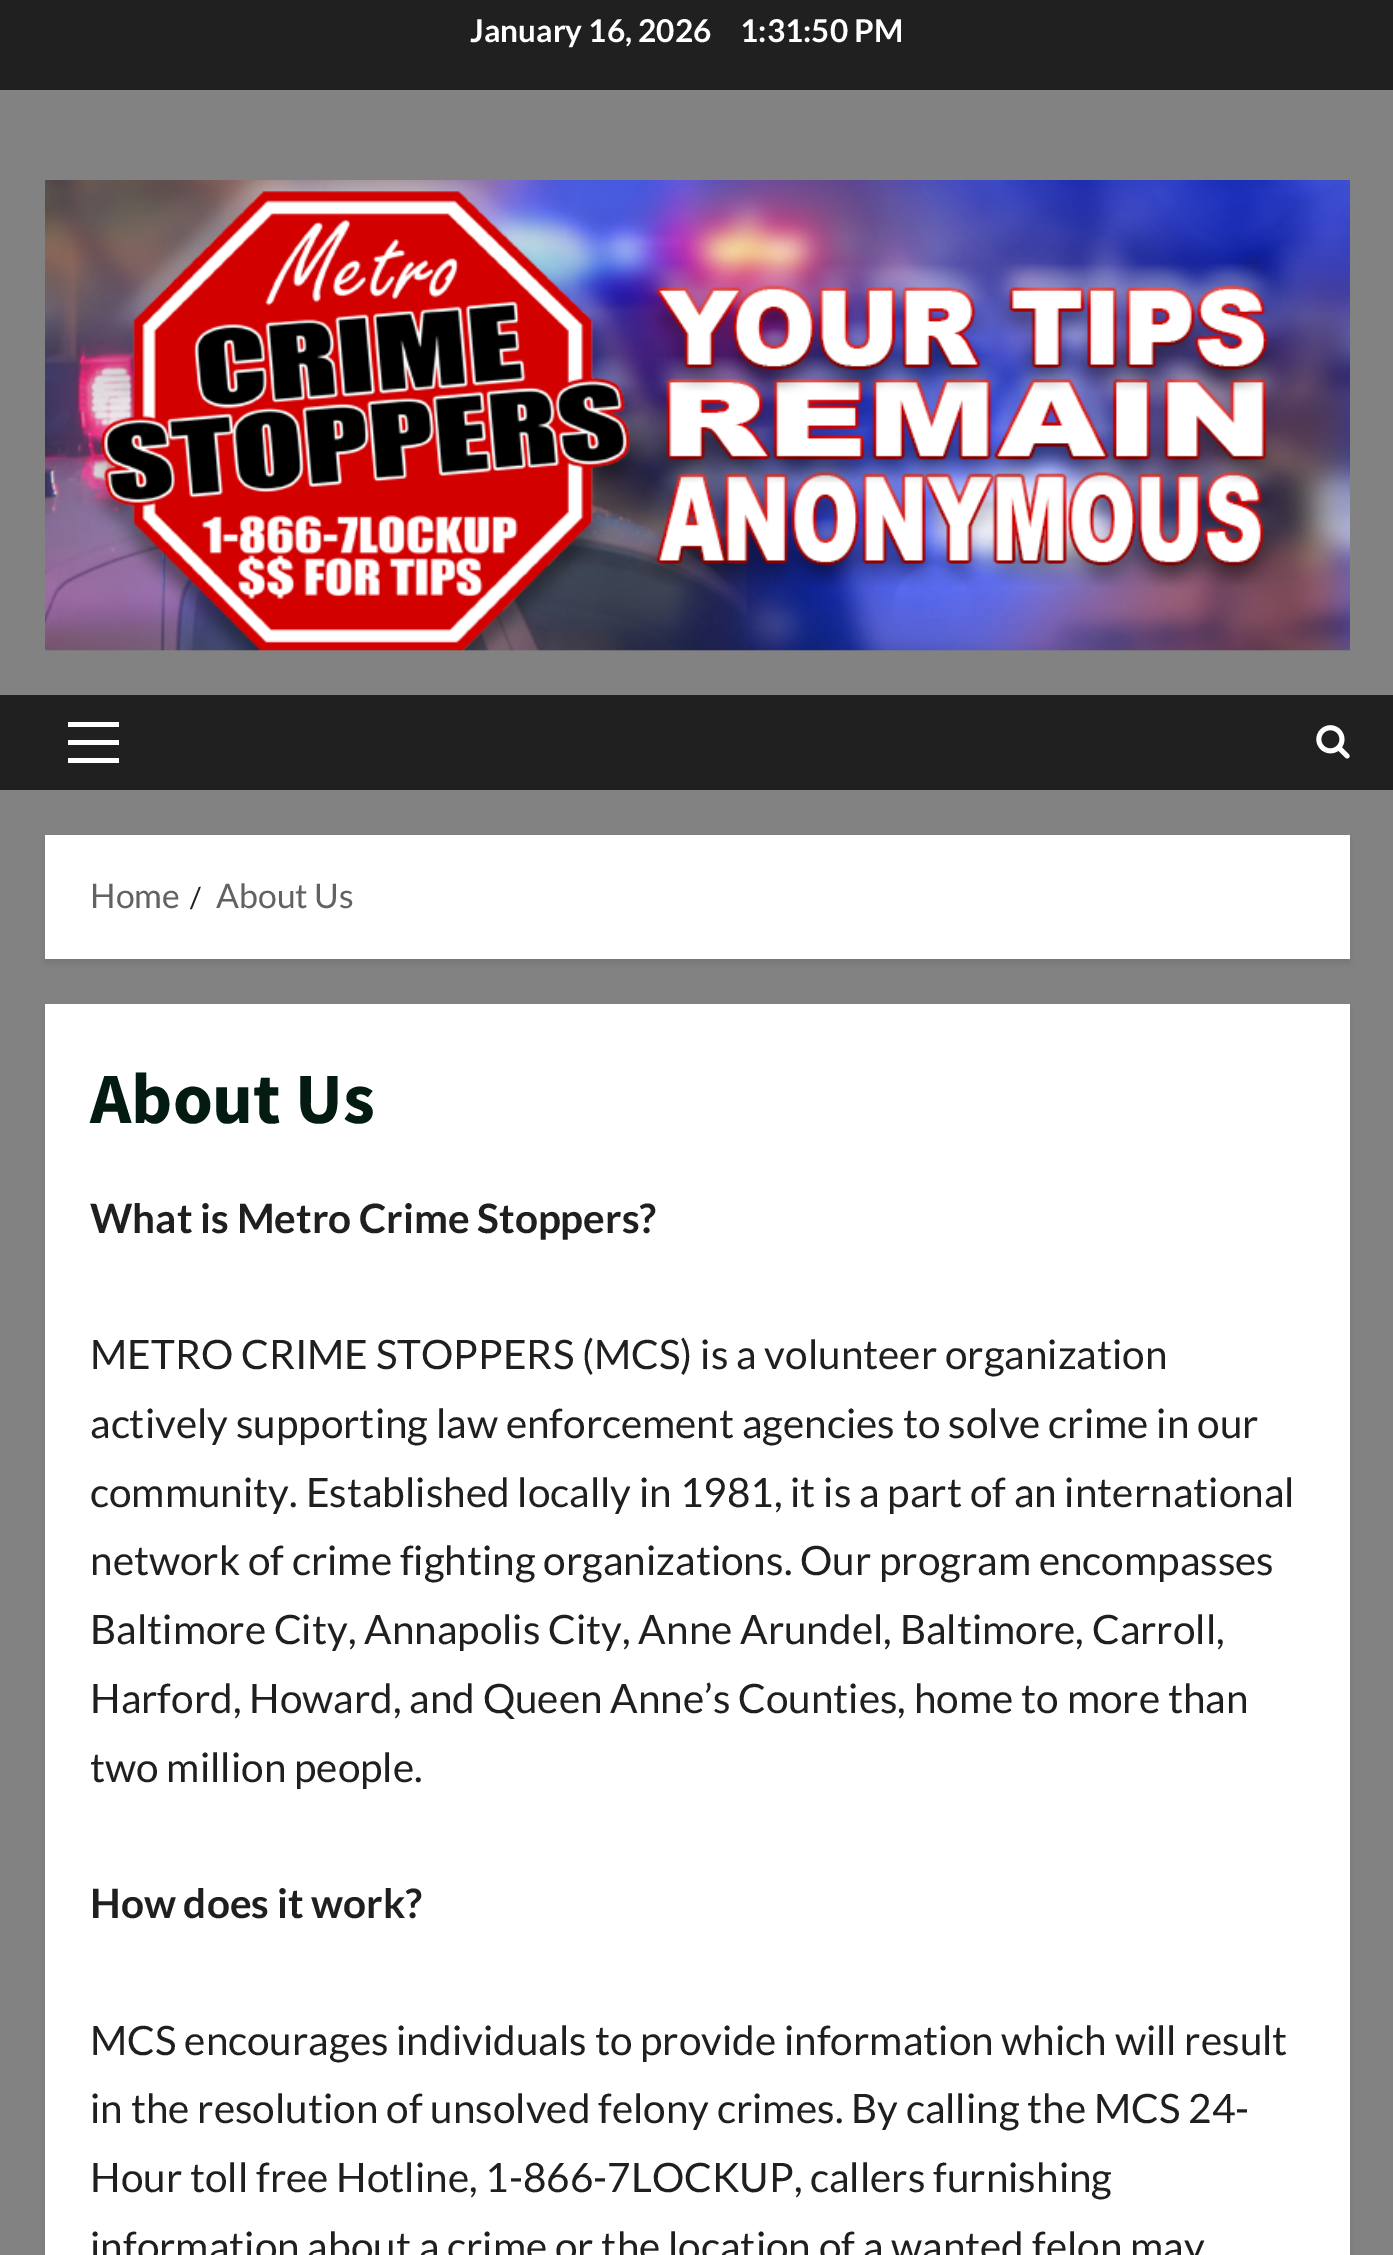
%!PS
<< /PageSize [1393 2255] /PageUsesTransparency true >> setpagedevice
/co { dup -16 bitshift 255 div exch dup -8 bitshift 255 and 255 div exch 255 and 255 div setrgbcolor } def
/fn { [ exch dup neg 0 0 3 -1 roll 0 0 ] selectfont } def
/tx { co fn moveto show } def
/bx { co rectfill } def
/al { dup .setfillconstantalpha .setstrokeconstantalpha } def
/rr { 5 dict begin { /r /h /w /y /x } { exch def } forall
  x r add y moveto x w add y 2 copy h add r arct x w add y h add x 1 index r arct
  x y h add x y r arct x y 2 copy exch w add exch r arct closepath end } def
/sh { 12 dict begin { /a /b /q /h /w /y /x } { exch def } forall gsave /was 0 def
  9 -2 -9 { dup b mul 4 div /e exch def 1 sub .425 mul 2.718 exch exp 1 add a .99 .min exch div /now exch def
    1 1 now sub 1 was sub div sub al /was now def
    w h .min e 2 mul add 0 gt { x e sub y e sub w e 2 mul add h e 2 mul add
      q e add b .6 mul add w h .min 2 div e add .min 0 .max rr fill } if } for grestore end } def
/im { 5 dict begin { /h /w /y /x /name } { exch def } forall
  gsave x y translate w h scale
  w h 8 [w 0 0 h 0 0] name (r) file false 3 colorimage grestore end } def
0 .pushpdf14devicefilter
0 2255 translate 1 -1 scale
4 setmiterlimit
0 0 1393 2255 16#828282 bx
0 0 1393 90 16#202020 bx
(media/1.raw) 45 180 1305 471 im
0 695 1393 95 16#202020 bx
68 740 51 5 16#FFFFFF bx
68 722 51 5 16#FFFFFF bx
68 758 51 5 16#FFFFFF bx
(media/2.raw) 1316 725 34 34 im
16#000000 co
45 839 1305 124 0 2 .08 sh
45 835 1305 124 16#FFFFFF bx
16#000000 co
45 1008 1305 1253 0 2 .08 sh
45 1004 1305 1251 16#FFFFFF bx
(January 16, 2026) 470 42 /Lato-Bold 31.5 16#FFFFFF tx
(1:31:50 PM) 740 42 /Lato-Bold 31.5 16#FFFFFF tx
(Home) 90 908 /Lato-Regular 33.75 16#626262 tx
(/) 190 908 /Lato-Regular 29 16#1F1F1F tx
(About Us) 216 908 /Lato-Regular 33.75 16#626262 tx
(About Us) 90 1123 /SourceSansPro-Bold 72 16#031B11 tx
(What is Metro Crime Stoppers?) 90 1233 /Lato-Bold 40.5 16#1F1F1F tx
(METRO CRIME STOPPERS \(MCS\) is a volunteer organization) 90 1369 /Lato-Regular 40.5 16#1F1F1F tx
(actively supporting law enforcement agencies to solve crime in our) 90 1438 /Lato-Regular 40.5 16#1F1F1F tx
(community. Established locally in 1981, it is a part of an international) 90 1507 /Lato-Regular 40.5 16#1F1F1F tx
(network of crime fighting organizations. Our program encompasses) 90 1575 /Lato-Regular 40.5 16#1F1F1F tx
(Baltimore City, Annapolis City, Anne Arundel, Baltimore, Carroll,) 90 1644 /Lato-Regular 40.5 16#1F1F1F tx
(Harford, Howard, and Queen Anne’s Counties, home to more than) 90 1713 /Lato-Regular 40.5 16#1F1F1F tx
(two million people.) 90 1782 /Lato-Regular 40.5 16#1F1F1F tx
(How does it work?) 90 1918 /Lato-Bold 40.5 16#1F1F1F tx
(MCS encourages individuals to provide information which will result) 90 2055 /Lato-Regular 40.5 16#1F1F1F tx
(in the resolution of unsolved felony crimes. By calling the MCS 24-) 90 2123 /Lato-Regular 40.5 16#1F1F1F tx
(Hour toll free Hotline, 1-866-7LOCKUP, callers furnishing) 90 2192 /Lato-Regular 40.5 16#1F1F1F tx
(information about a crime or the location of a wanted felon may) 90 2261 /Lato-Regular 40.5 16#1F1F1F tx
.poppdf14devicefilter showpage
